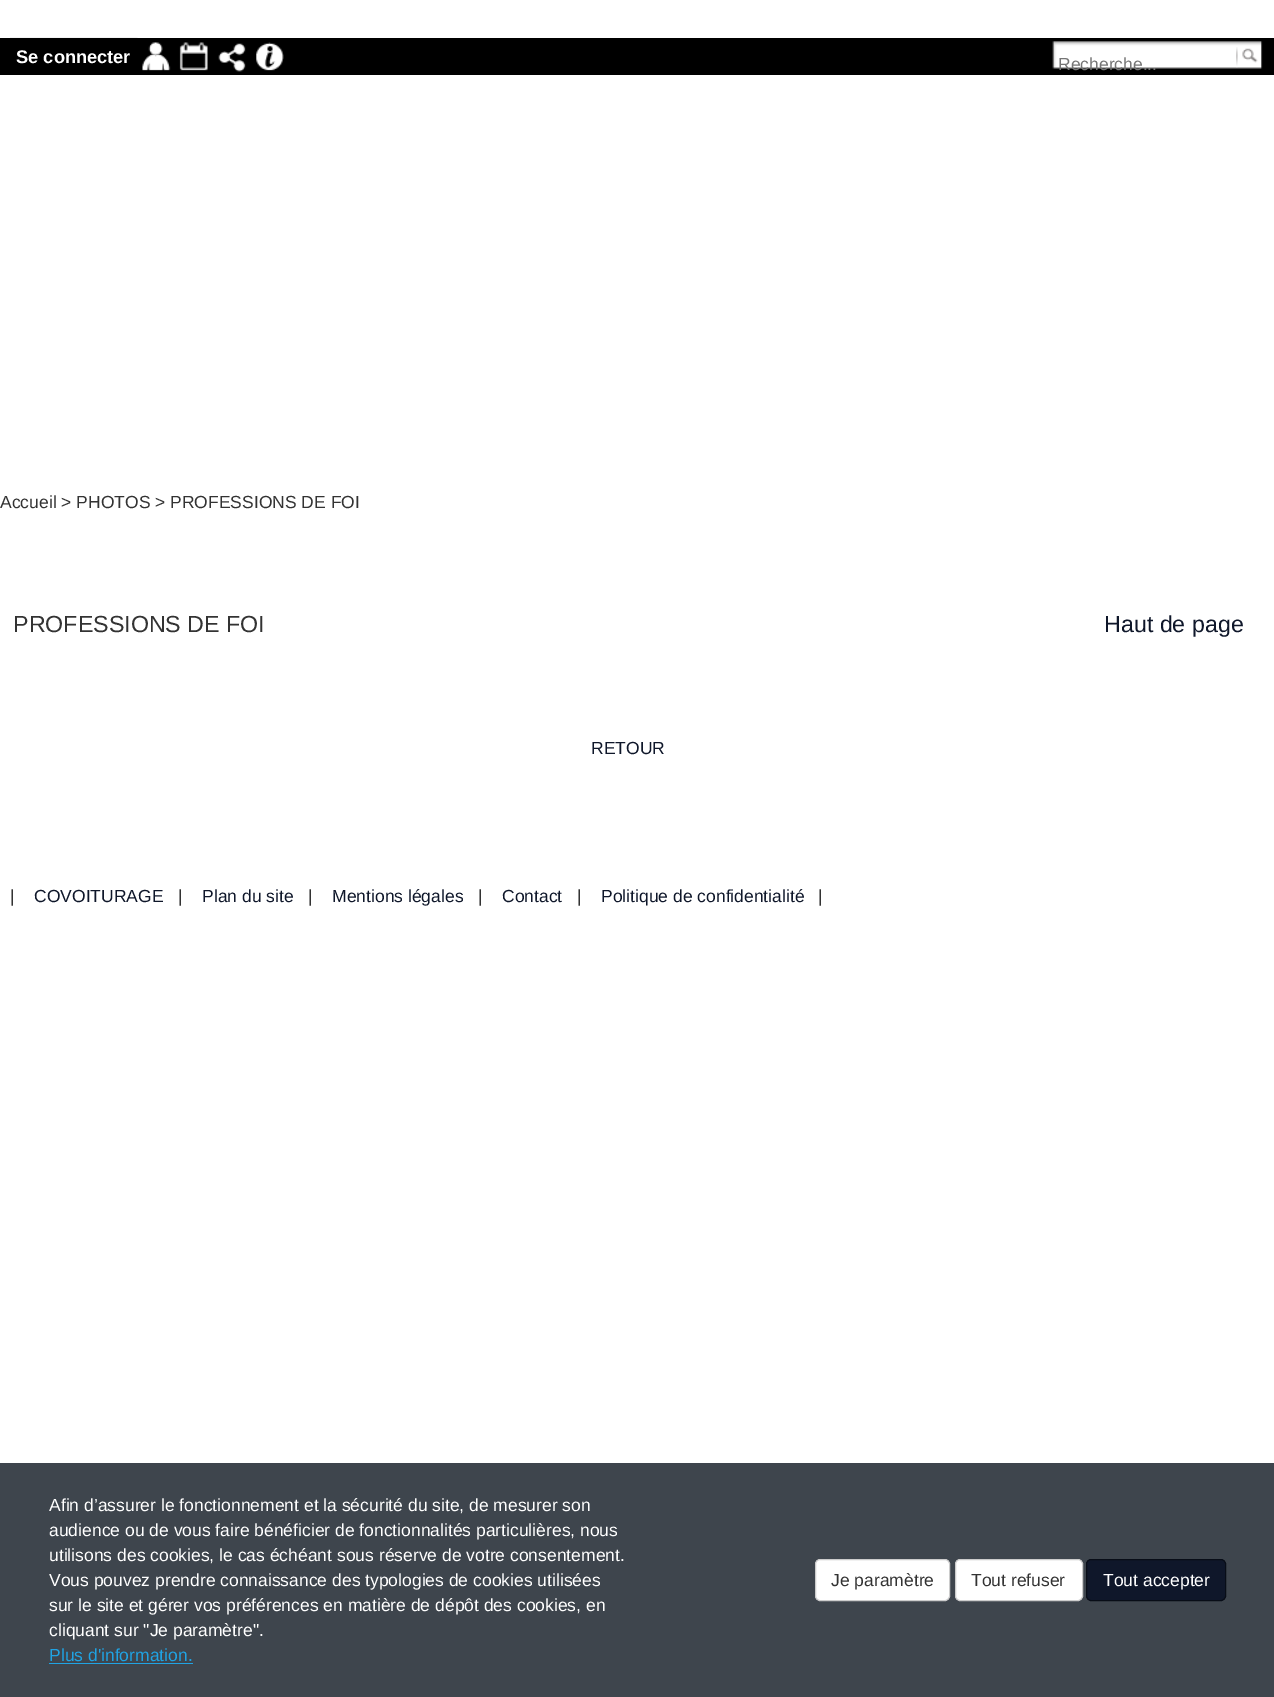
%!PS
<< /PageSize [1274 1697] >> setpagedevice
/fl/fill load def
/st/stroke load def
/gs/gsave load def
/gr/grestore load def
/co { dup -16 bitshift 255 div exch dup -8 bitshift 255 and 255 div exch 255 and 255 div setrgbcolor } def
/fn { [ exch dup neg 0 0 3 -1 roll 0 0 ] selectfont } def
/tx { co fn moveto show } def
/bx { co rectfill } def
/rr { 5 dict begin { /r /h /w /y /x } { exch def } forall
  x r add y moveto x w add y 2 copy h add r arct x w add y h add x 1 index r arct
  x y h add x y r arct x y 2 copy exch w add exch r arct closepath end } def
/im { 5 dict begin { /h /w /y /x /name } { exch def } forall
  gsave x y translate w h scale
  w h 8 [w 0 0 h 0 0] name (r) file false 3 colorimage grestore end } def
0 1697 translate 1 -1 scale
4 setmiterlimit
0 0 1274 1697 16#FFFFFF bx
0 38 1274 37 16#000000 bx
(media/1.raw) 10 37 128 1 im
(media/2.raw) 142 42 29 29 im
(media/3.raw) 179 42 29 29 im
(media/4.raw) 218 43 28 29 im
(media/5.raw) 256 42 28 29 im
(media/6.raw) 1052 41 211 28 im
(media/7.raw) 1236 47 22 21 im
0 1463 1274 234 16#3E454D bx
49 1663 144 1 16#20A3E3 bx
16#FFFFFF co
815.5 1559.5 134 41 4.5 rr gs fl gr
16#CCCCCC co
st
16#FFFFFF co
955.5 1559.5 127 41 4.5 rr gs fl gr
16#CCCCCC co
st
16#0F172A co
1086.5 1559.5 139 41 4.5 rr gs fl gr
16#080D17 co
st
(Se connecter) 16 63 /LiberationSans-Bold 18.25 16#FFFFFF tx
(Recherche...) 1058 70 /LiberationSans-Regular 17.5 16#757575 tx
(Accueil > PHOTOS > PROFESSIONS DE FOI) 0 508 /LiberationSans-Regular 17.5 16#333333 tx
(PROFESSIONS DE FOI) 13 632 /LiberationSans-Regular 23.25 16#333333 tx
(Haut de page) 1104 632 /LiberationSans-Regular 23.25 16#0F172A tx
(RETOUR) 591 754 /LiberationSans-Regular 17.5 16#0F172A tx
(|) 10 902 /LiberationSans-Regular 17.5 16#333333 tx
(COVOITURAGE) 34 902 /LiberationSans-Regular 17.5 16#0F172A tx
(|) 178 902 /LiberationSans-Regular 17.5 16#333333 tx
(Plan du site) 202 902 /LiberationSans-Regular 17.5 16#0F172A tx
(|) 308 902 /LiberationSans-Regular 17.5 16#333333 tx
(Mentions légales) 332 902 /LiberationSans-Regular 17.5 16#0F172A tx
(|) 478 902 /LiberationSans-Regular 17.5 16#333333 tx
(Contact) 502 902 /LiberationSans-Regular 17.5 16#0F172A tx
(|) 577 902 /LiberationSans-Regular 17.5 16#333333 tx
(Politique de confidentialité) 601 902 /LiberationSans-Regular 17.5 16#0F172A tx
(|) 818 902 /LiberationSans-Regular 17.5 16#333333 tx
(Afin d’assurer le fonctionnement et la sécurité du site, de mesurer son) 49 1511 /LiberationSans-Regular 17.5 16#FFFFFF tx
(audience ou de vous faire bénéficier de fonctionnalités particulières, nous) 49 1536 /LiberationSans-Regular 17.5 16#FFFFFF tx
(utilisons des cookies, le cas échéant sous réserve de votre consentement.) 49 1561 /LiberationSans-Regular 17.5 16#FFFFFF tx
(Vous pouvez prendre connaissance des typologies de cookies utilisées) 49 1586 /LiberationSans-Regular 17.5 16#FFFFFF tx
(sur le site et gérer vos préférences en matière de dépôt des cookies, en) 49 1611 /LiberationSans-Regular 17.5 16#FFFFFF tx
(cliquant sur "Je paramètre".) 49 1636 /LiberationSans-Regular 17.5 16#FFFFFF tx
(Plus d'information.) 49 1661 /LiberationSans-Regular 17.5 16#20A3E3 tx
(Je paramètre) 831 1586 /LiberationSans-Regular 17.5 16#333333 tx
(Tout refuser) 971 1586 /LiberationSans-Regular 17.5 16#333333 tx
(Tout accepter) 1103 1586 /LiberationSans-Regular 17.5 16#FFFFFF tx
showpage
